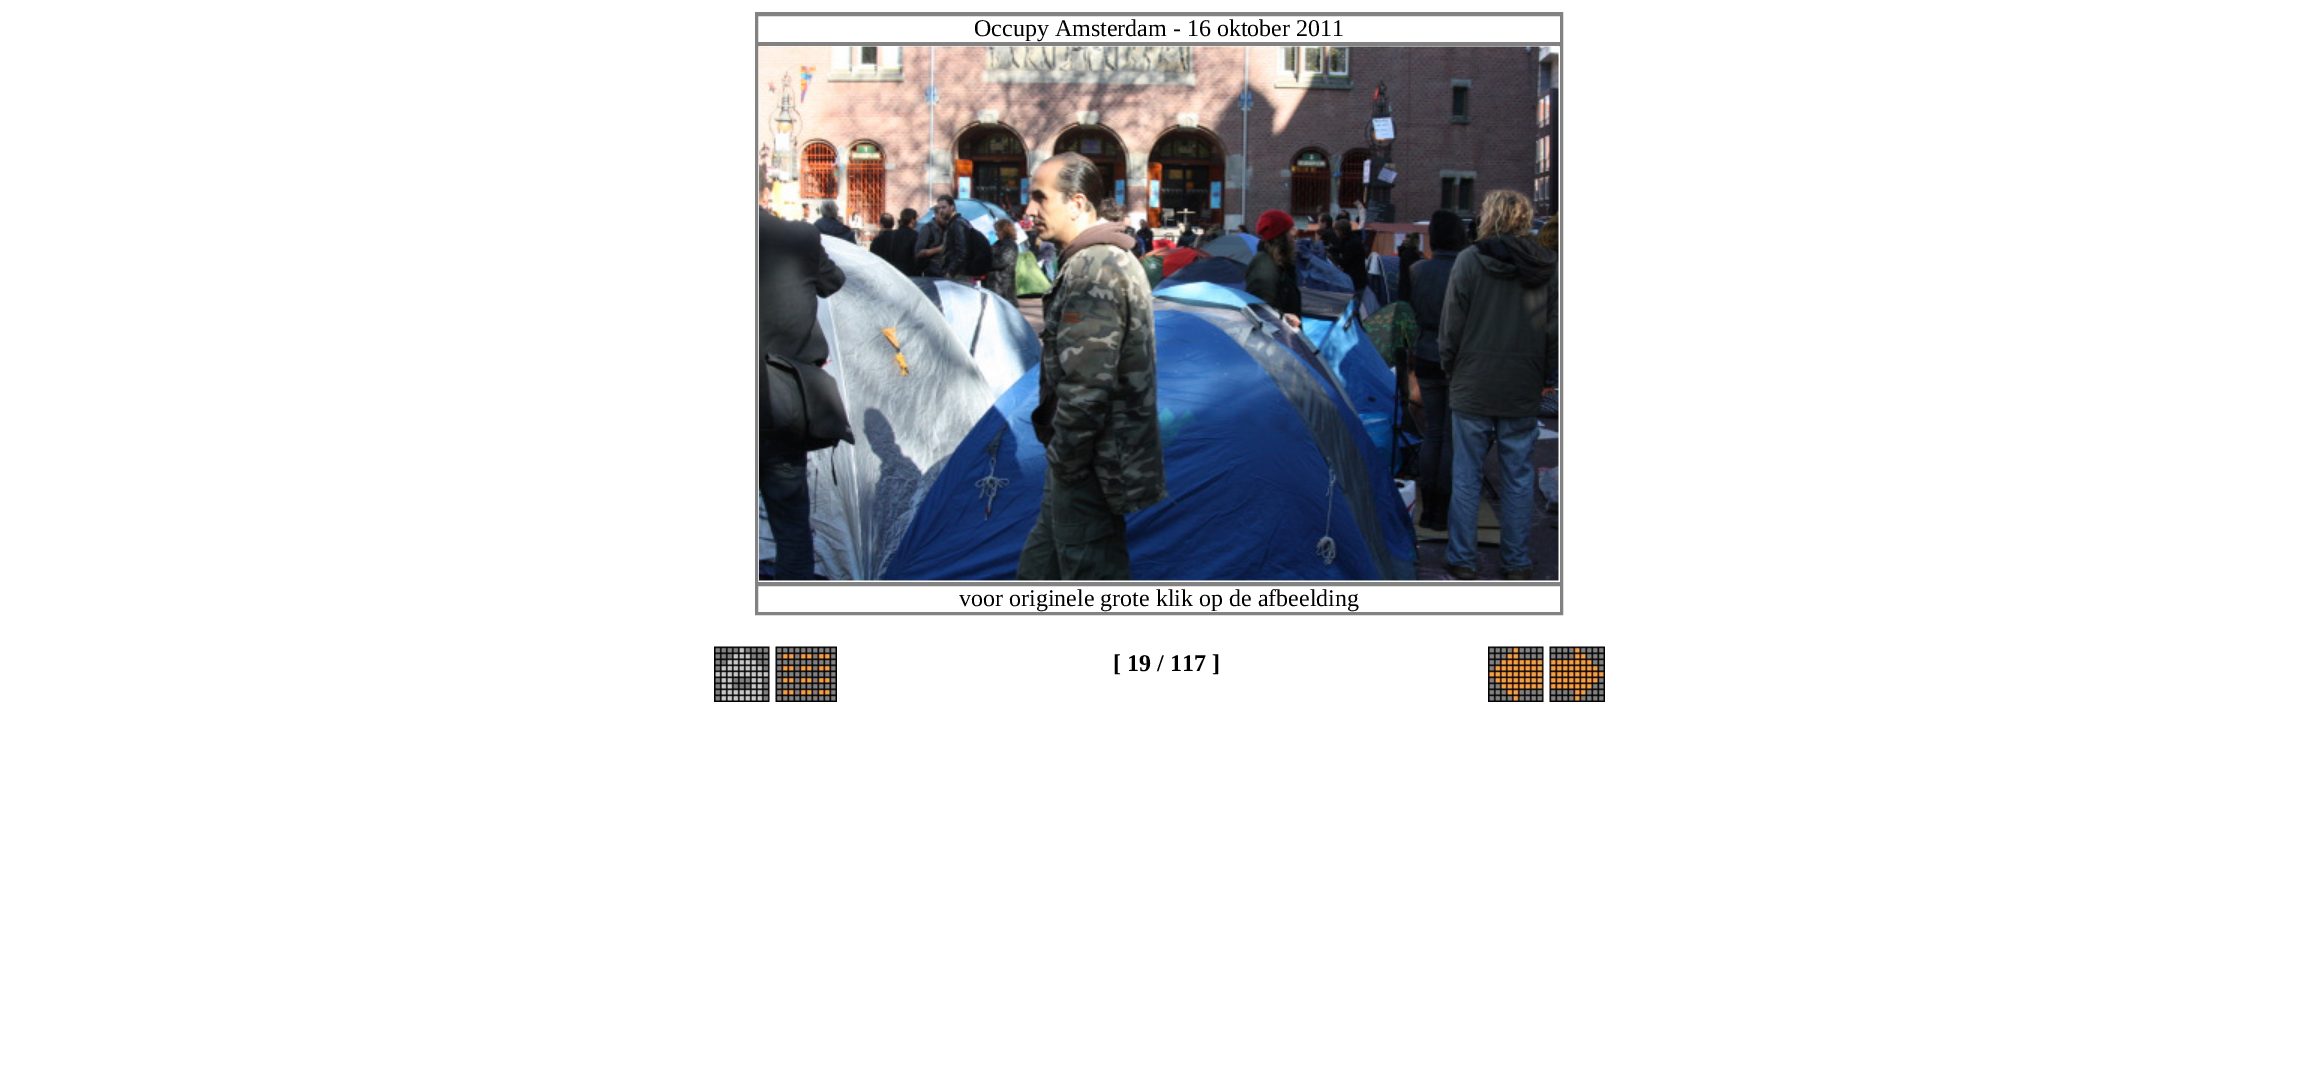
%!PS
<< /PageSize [2317 1084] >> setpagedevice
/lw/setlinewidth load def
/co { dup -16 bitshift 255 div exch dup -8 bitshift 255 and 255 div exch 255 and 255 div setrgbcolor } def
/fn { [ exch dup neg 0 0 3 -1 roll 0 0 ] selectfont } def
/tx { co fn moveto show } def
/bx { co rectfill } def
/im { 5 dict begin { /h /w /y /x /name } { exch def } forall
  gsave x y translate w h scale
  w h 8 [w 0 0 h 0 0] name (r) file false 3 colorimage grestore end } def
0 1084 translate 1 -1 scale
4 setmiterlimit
0 0 2317 1084 16#FFFFFF bx
16#828282 co
2 lw
756 13 806 601 rectstroke
757 15 804 28 rectstroke
757 45 804 538 rectstroke
(media/1.raw) 759 46 800 535 im
757 585 804 28 rectstroke
(media/2.raw) 714 646 56 56 im
(media/3.raw) 775 646 62 56 im
(media/4.raw) 1488 646 56 56 im
(media/5.raw) 1549 646 56 56 im
(Occupy Amsterdam - 16 oktober 2011) 974 36 /LiberationSerif-Regular 24 16#000000 tx
(voor originele grote klik op de afbeelding) 959 606 /LiberationSerif-Regular 24 16#000000 tx
([ 19 / 117 ]) 1113 671 /LiberationSerif-Bold 24 16#000000 tx
showpage
